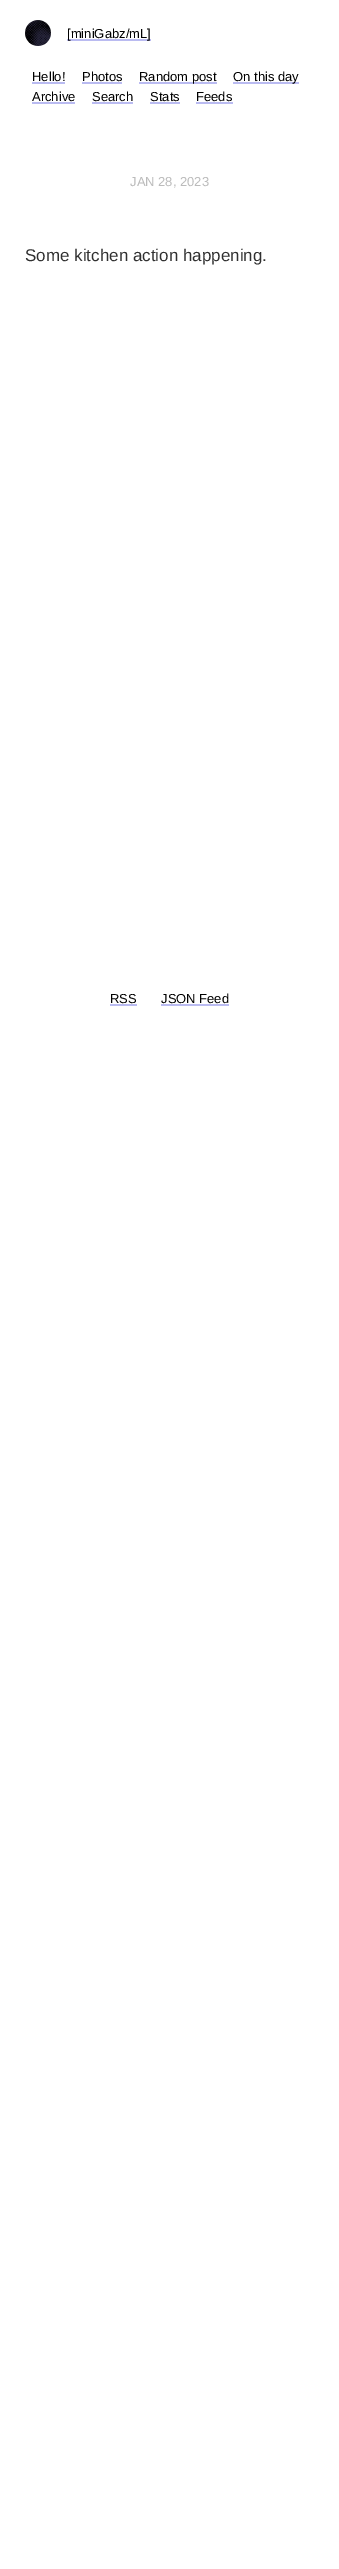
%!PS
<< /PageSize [339 2569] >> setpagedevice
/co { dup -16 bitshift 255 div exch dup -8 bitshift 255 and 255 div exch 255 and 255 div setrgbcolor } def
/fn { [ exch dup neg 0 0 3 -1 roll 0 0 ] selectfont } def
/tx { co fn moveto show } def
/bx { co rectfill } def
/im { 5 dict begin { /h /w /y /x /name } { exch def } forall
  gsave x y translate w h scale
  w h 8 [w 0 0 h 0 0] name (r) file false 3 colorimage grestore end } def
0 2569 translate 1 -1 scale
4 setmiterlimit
0 0 339 2569 16#FFFFFF bx
(media/1.raw) 25 20 26 26 im
67 39 84 2 16#BABBF1 bx
32 82 33 2 16#BABBF1 bx
82 82 40 2 16#BABBF1 bx
139 82 78 2 16#BABBF1 bx
233 82 66 2 16#BABBF1 bx
32 102 43 2 16#BABBF1 bx
92 102 41 2 16#BABBF1 bx
150 102 30 2 16#BABBF1 bx
196 102 37 2 16#BABBF1 bx
110 1004 27 2 16#BABBF1 bx
161 1004 68 2 16#BABBF1 bx
([miniGabz/mL]) 67 38 /LiberationSans-Regular 13 16#000000 tx
(Hello!) 32 81 /LiberationSans-Regular 13 16#000000 tx
(Photos) 82 81 /LiberationSans-Regular 13 16#000000 tx
(Random post) 139 81 /LiberationSans-Regular 13 16#000000 tx
(On this day) 233 81 /LiberationSans-Regular 13 16#000000 tx
(Archive) 32 101 /LiberationSans-Regular 13 16#000000 tx
(Search) 92 101 /LiberationSans-Regular 13 16#000000 tx
(Stats) 150 101 /LiberationSans-Regular 13 16#000000 tx
(Feeds) 196 101 /LiberationSans-Regular 13 16#000000 tx
(JAN 28, 2023) 130 186 /LiberationSans-Regular 13 16#BBBBBB tx
(Some kitchen action happening.) 25 261 /LiberationSans-Regular 17 16#303030 tx
(RSS) 110 1003 /LiberationSans-Regular 13 16#000000 tx
(JSON Feed) 161 1003 /LiberationSans-Regular 13 16#000000 tx
showpage
